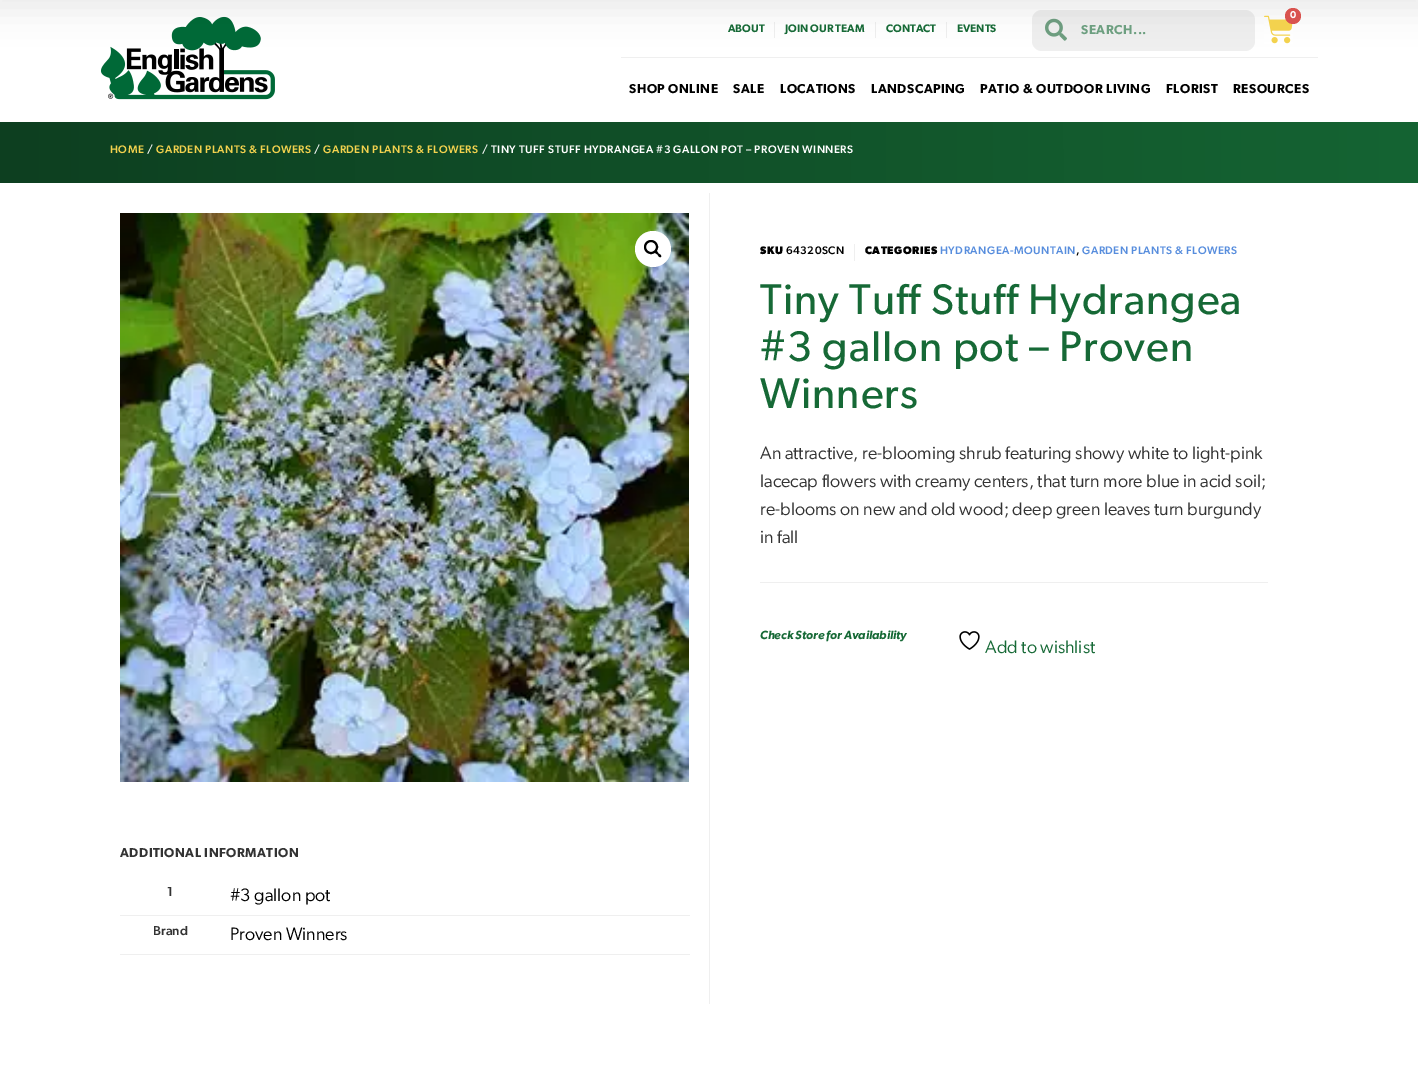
%!PS
<< /PageSize [1418 1081] /PageUsesTransparency true >> setpagedevice
/mt/moveto load def
/li/lineto load def
/ct/curveto load def
/cp/closepath load def
/fl/fill load def
/st/stroke load def
/gs/gsave load def
/gr/grestore load def
/lw/setlinewidth load def
/co { dup -16 bitshift 255 div exch dup -8 bitshift 255 and 255 div exch 255 and 255 div setrgbcolor } def
/fn { [ exch dup neg 0 0 3 -1 roll 0 0 ] selectfont } def
/tx { co fn moveto show } def
/bx { co rectfill } def
/al { dup .setfillconstantalpha .setstrokeconstantalpha } def
/ci { newpath 0 360 arc closepath } def
/rr { 5 dict begin { /r /h /w /y /x } { exch def } forall
  x r add y moveto x w add y 2 copy h add r arct x w add y h add x 1 index r arct
  x y h add x y r arct x y 2 copy exch w add exch r arct closepath end } def
/sh { 12 dict begin { /a /b /q /h /w /y /x } { exch def } forall gsave /was 0 def
  9 -2 -9 { dup b mul 4 div /e exch def 1 sub .425 mul 2.718 exch exp 1 add a .99 .min exch div /now exch def
    1 1 now sub 1 was sub div sub al /was now def
    w h .min e 2 mul add 0 gt { x e sub y e sub w e 2 mul add h e 2 mul add
      q e add b .6 mul add w h .min 2 div e add .min 0 .max rr fill } if } for grestore end } def
/im { 5 dict begin { /h /w /y /x /name } { exch def } forall
  gsave x y translate w h scale
  w h 8 [w 0 0 h 0 0] name (r) file false 3 colorimage grestore end } def
0 .pushpdf14devicefilter
0 1081 translate 1 -1 scale
4 setmiterlimit
0 0 1418 1081 16#FFFFFF bx
(media/1.raw) 100 16 175 84 im
774 22 1 16 16#EFEFEF bx
875 22 1 16 16#EFEFEF bx
946 22 1 16 16#EFEFEF bx
1032 10 223 41 10 rr fl
(media/3.raw) 1045 18 22 23 im
621 57 697 1 16#EFEFEF bx
16#000000 co
-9 -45 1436 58 0 15 .07 sh
(media/2.raw) 1264 15 29 29 im
16#D9534F co
1293 16 8 ci fl
gs 0 122 mt 1418 122 li 1418 183 li 0 183 li cp clip newpath
<< /ShadingType 2 /ColorSpace /DeviceRGB /Coords [0 153 1418 152] /Extend [true true] /Function << /FunctionType 2 /Domain [0 1] /C0 [.051 .247 .125] /C1 [.082 .392 .2] /N 1 >> >> shfill gr
709 193 1 811 16#EFEFEF bx
854 244 1 17 16#EFEFEF bx
760 582 508 1 16#EFEFEF bx
(media/4.raw) 959 631 21 19 im
(media/5.raw) 120 213 569 569 im
16#FFFFFF co
653 249 18 ci fl
16#000000 co
2 lw
651 247 6 ci st
655 251 mt 656.5 250 658 252.5 658.5 253.5 ct 659.5 254 662 255.5 661 257 ct 659.5 258 658 255.5 657.5 254.5 ct 656.5 254 654 252.5 655 251 ct cp fl
120 915 570 1 16#EFEFEF bx
120 954 570 1 16#EFEFEF bx
/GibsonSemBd-SemiBold 10 fn
16#FFFFFF co
1290 18 mt .5 0 (0) ashow
(ABOUT) 728 32 /GibsonSemBd-SemiBold 11 16#166936 tx
(JOIN OUR TEAM) 785 32 /GibsonSemBd-SemiBold 11 16#166936 tx
(CONTACT) 886 32 /GibsonSemBd-SemiBold 11 16#166936 tx
(EVENTS) 957 32 /GibsonSemBd-SemiBold 11 16#166936 tx
/GibsonSemBd-SemiBold 13 fn
16#6D9F80 co
1081 34 mt .5 0 (SEARCH...) ashow
16#000000 co
629 93 mt .5 0 (SHOP ONLINE) ashow
733 93 mt .5 0 (SALE) ashow
780 93 mt .5 0 (LOCATIONS) ashow
871 93 mt .5 0 (LANDSCAPING) ashow
980 93 mt .5 0 (PATIO & OUTDOOR LIVING) ashow
1166 93 mt .5 0 (FLORIST) ashow
1233 93 mt .5 0 (RESOURCES) ashow
/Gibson-Medium 11 fn
16#F3D24E co
110 153 mt .5 0 (HOME) ashow
16#FFFFFF co
147 153 mt .5 0 (/) ashow
16#F3D24E co
156 153 mt .5 0 (GARDEN PLANTS & FLOWERS) ashow
16#FFFFFF co
314 153 mt .5 0 (/) ashow
16#F3D24E co
323 153 mt .5 0 (GARDEN PLANTS & FLOWERS) ashow
16#FFFFFF co
482 153 mt .5 0 (/ TINY TUFF STUFF HYDRANGEA #3 GALLON POT – PROVEN WINNERS) ashow
/Gibson-Bold 11 fn
16#000000 co
760 254 mt .5 0 (SKU) ashow
/Gibson-Medium 11 fn
786 254 mt .5 0 (64320SCN) ashow
/Gibson-Bold 11 fn
865 254 mt .5 0 (CATEGORIES) ashow
/Gibson-Medium 11 fn
16#578DDD co
940 254 mt .5 0 (HYDRANGEA-MOUNTAIN) ashow
16#000000 co
1076 254 mt .5 0 (,) ashow
16#578DDD co
1082 254 mt .5 0 (GARDEN PLANTS & FLOWERS) ashow
/Gibson-Regular 43 fn
16#166936 co
760 314 mt 1 0 (Tiny Tuff Stuff Hydrangea) ashow
760 361 mt 1 0 (#3 gallon pot – Proven) ashow
760 408 mt 1 0 (Winners) ashow
(An attractive, re-blooming shrub featuring showy white to light-pink) 760 459 /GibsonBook-Regular 18 16#333333 tx
(lacecap flowers with creamy centers, that turn more blue in acid soil;) 760 487 /GibsonBook-Regular 18 16#333333 tx
(re-blooms on new and old wood; deep green leaves turn burgundy) 760 515 /GibsonBook-Regular 18 16#333333 tx
(in fall) 760 543 /GibsonBook-Regular 18 16#333333 tx
(Check Store for Availability) 760 639 /GibsonSemBd-SemiBoldItalic 12 16#166936 tx
(Add to wishlist) 985 653 /GibsonBook-Regular 18 16#166936 tx
/GibsonSemBd-SemiBold 13 fn
16#333333 co
120 857 mt .5 0 (ADDITIONAL INFORMATION) ashow
(1) 167 896 /Gibson-Medium 13 16#333333 tx
(#3 gallon pot) 230 901 /GibsonBook-Regular 18 16#000000 tx
(Brand) 153 935 /Gibson-Medium 13 16#333333 tx
(Proven Winners) 230 940 /GibsonBook-Regular 18 16#000000 tx
.poppdf14devicefilter showpage
